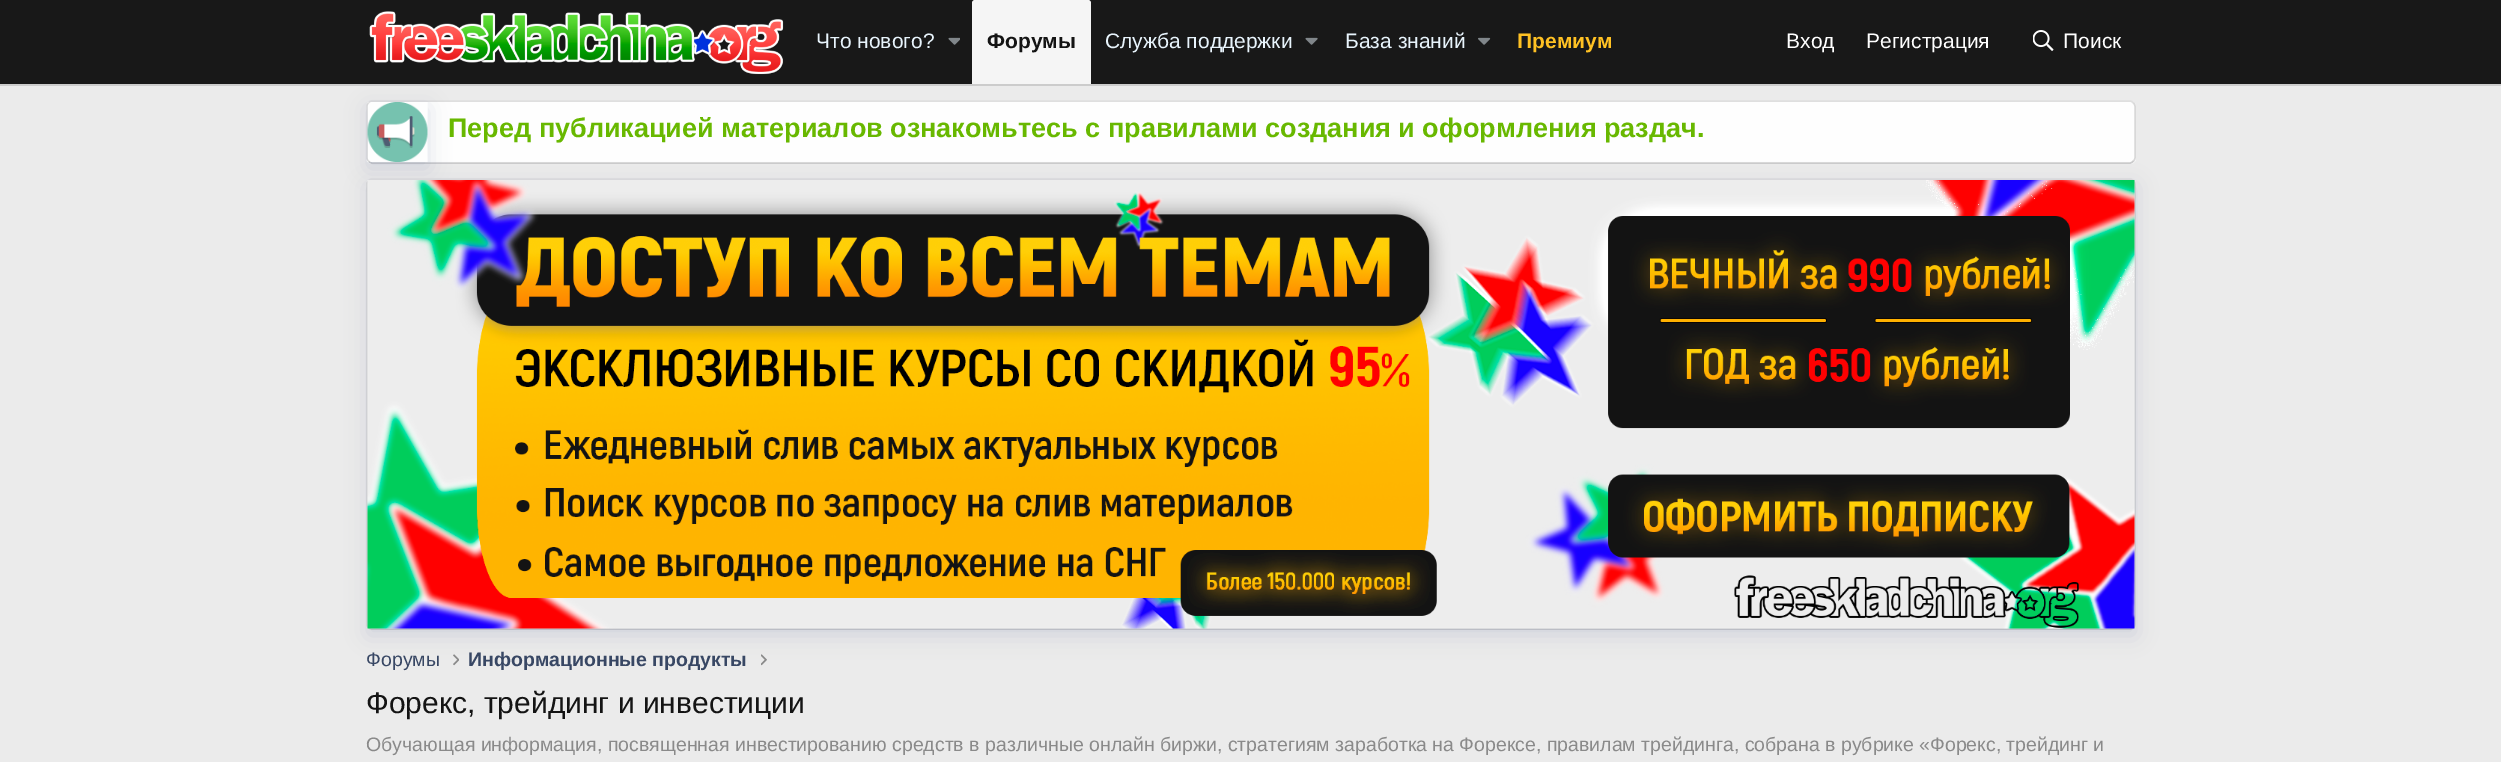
%!PS
<< /PageSize [2501 762] /PageUsesTransparency true >> setpagedevice
/mt/moveto load def
/li/lineto load def
/ct/curveto load def
/cp/closepath load def
/fl/fill load def
/st/stroke load def
/gs/gsave load def
/gr/grestore load def
/lw/setlinewidth load def
/co { dup -16 bitshift 255 div exch dup -8 bitshift 255 and 255 div exch 255 and 255 div setrgbcolor } def
/fn { [ exch dup neg 0 0 3 -1 roll 0 0 ] selectfont } def
/tx { co fn moveto show } def
/bx { co rectfill } def
/al { dup .setfillconstantalpha .setstrokeconstantalpha } def
/rr { 5 dict begin { /r /h /w /y /x } { exch def } forall
  x r add y moveto x w add y 2 copy h add r arct x w add y h add x 1 index r arct
  x y h add x y r arct x y 2 copy exch w add exch r arct closepath end } def
/sh { 12 dict begin { /a /b /q /h /w /y /x } { exch def } forall gsave /was 0 def
  9 -2 -9 { dup b mul 4 div /e exch def 1 sub .425 mul 2.718 exch exp 1 add a .99 .min exch div /now exch def
    1 1 now sub 1 was sub div sub al /was now def
    w h .min e 2 mul add 0 gt { x e sub y e sub w e 2 mul add h e 2 mul add
      q e add b .6 mul add w h .min 2 div e add .min 0 .max rr fill } if } for grestore end } def
/im { 5 dict begin { /h /w /y /x /name } { exch def } forall
  gsave x y translate w h scale
  w h 8 [w 0 0 h 0 0] name (r) file false 3 colorimage grestore end } def
0 .pushpdf14devicefilter
0 762 translate 1 -1 scale
4 setmiterlimit
0 0 2501 762 16#EBEBEB bx
0 84 2501 2 16#CCCCCC bx
16#FEFEFE co
366 101 1770 63 6 rr fl
16#DFDFDF co
1.5 lw
368.5 103 mt 369.5 102 370.5 101 372 101 ct 2130 101 li 2131.5 101 2132.5 102 2133.5 103 ct st
16#D8D8D8 co
2133.5 103 mt 2134.5 104 2135 105 2135 106.5 ct 2135 157.5 li 2135 159 2134.5 160 2133.5 161 ct st
16#CBCBCB co
2133.5 161 mt 2132.5 162 2131.5 163 2130 163 ct 372 163 li 370.5 163 369.5 162 368.5 161 ct st
16#D8D8D8 co
368.5 161 mt 367.5 160 367 159 367 157.5 ct 367 106.5 li 367 105 367.5 104 368.5 103 ct st
gs
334 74 mt 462 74 li 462 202 li 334 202 li cp 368 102 mt 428 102 li 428 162 li 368 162 li cp eoclip newpath
16#586A99 co
368 108 60 60 0 11 .2 sh
gr
0 0 2501 84 16#181818 bx
(media/1.raw) 369 11 415 64 im
(media/2.raw) 948 37 12 8 im
16#F5F5F5 co
975 0 mt 1088 0 li 1089.5 0 1091 1.5 1091 3 ct 1091 84 li 972 84 li 972 3 li 972 1.5 973.5 0 975 0 ct cp fl
(media/3.raw) 1305 37 13 8 im
(media/4.raw) 1478 37 13 8 im
(media/5.raw) 2033 30 21 21 im
(media/6.raw) 367 102 61 60 im
16#E0E0E0 co
368.5 181 mt 369.5 180 370.5 179 372 179 ct 2130 179 li 2131.5 179 2132.5 180 2133.5 181 ct st
16#D6D6D6 co
2133.5 181 mt 2134.5 182 2135 183 2135 184.5 ct 2135 624 li 2135 625.5 2134.5 626.5 2133.5 627.5 ct st
16#CCCCCC co
2133.5 627.5 mt 2132.5 628.5 2131.5 629 2130 629 ct 372 629 li 370.5 629 369.5 628.5 368.5 627.5 ct st
16#D6D6D6 co
368.5 627.5 mt 367.5 626.5 367 625.5 367 624 ct 367 184.5 li 367 183 367.5 182 368.5 181 ct st
16#586A99 co
368 186 1767 449 0 11 .2 sh
(media/7.raw) 367 180 1768 449 im
(media/8.raw) 453 654 6 12 im
(media/9.raw) 761 654 6 12 im
(Что нового?) 816 48 /LiberationSans-Regular 21 16#E8F4FC tx
(Форумы) 987 48 /LiberationSans-Bold 21 16#141414 tx
(Служба поддержки) 1105 48 /LiberationSans-Regular 21 16#E8F4FC tx
(База знаний) 1345 48 /LiberationSans-Regular 21 16#E8F4FC tx
(Премиум) 1517 48 /LiberationSans-Bold 21 16#FFC123 tx
(Вход) 1786 48 /LiberationSans-Regular 21 16#FFFFFF tx
(Регистрация) 1866 48 /LiberationSans-Regular 21 16#FFFFFF tx
(Поиск) 2063 48 /LiberationSans-Regular 21 16#FFFFFF tx
(Перед публикацией материалов ознакомьтесь с правилами создания и оформления раздач.) 448 137 /LiberationSans-Bold 27 16#68B800 tx
(Форумы) 366 666 /LiberationSans-Regular 19.5 16#384764 tx
(Информационные продукты) 468 666 /LiberationSans-Bold 19.5 16#384764 tx
(Форекс, трейдинг и инвестиции) 366 713 /LiberationSans-Regular 30 16#141414 tx
(Обучающая информация, посвященная инвестированию средств в различные онлайн биржи, стратегиям заработка на Форексе, правилам трейдинга, собрана в рубрике «Форекс, трейдинг и) 366 751 /LiberationSans-Regular 19.5 16#8A8A8A tx
.poppdf14devicefilter showpage
